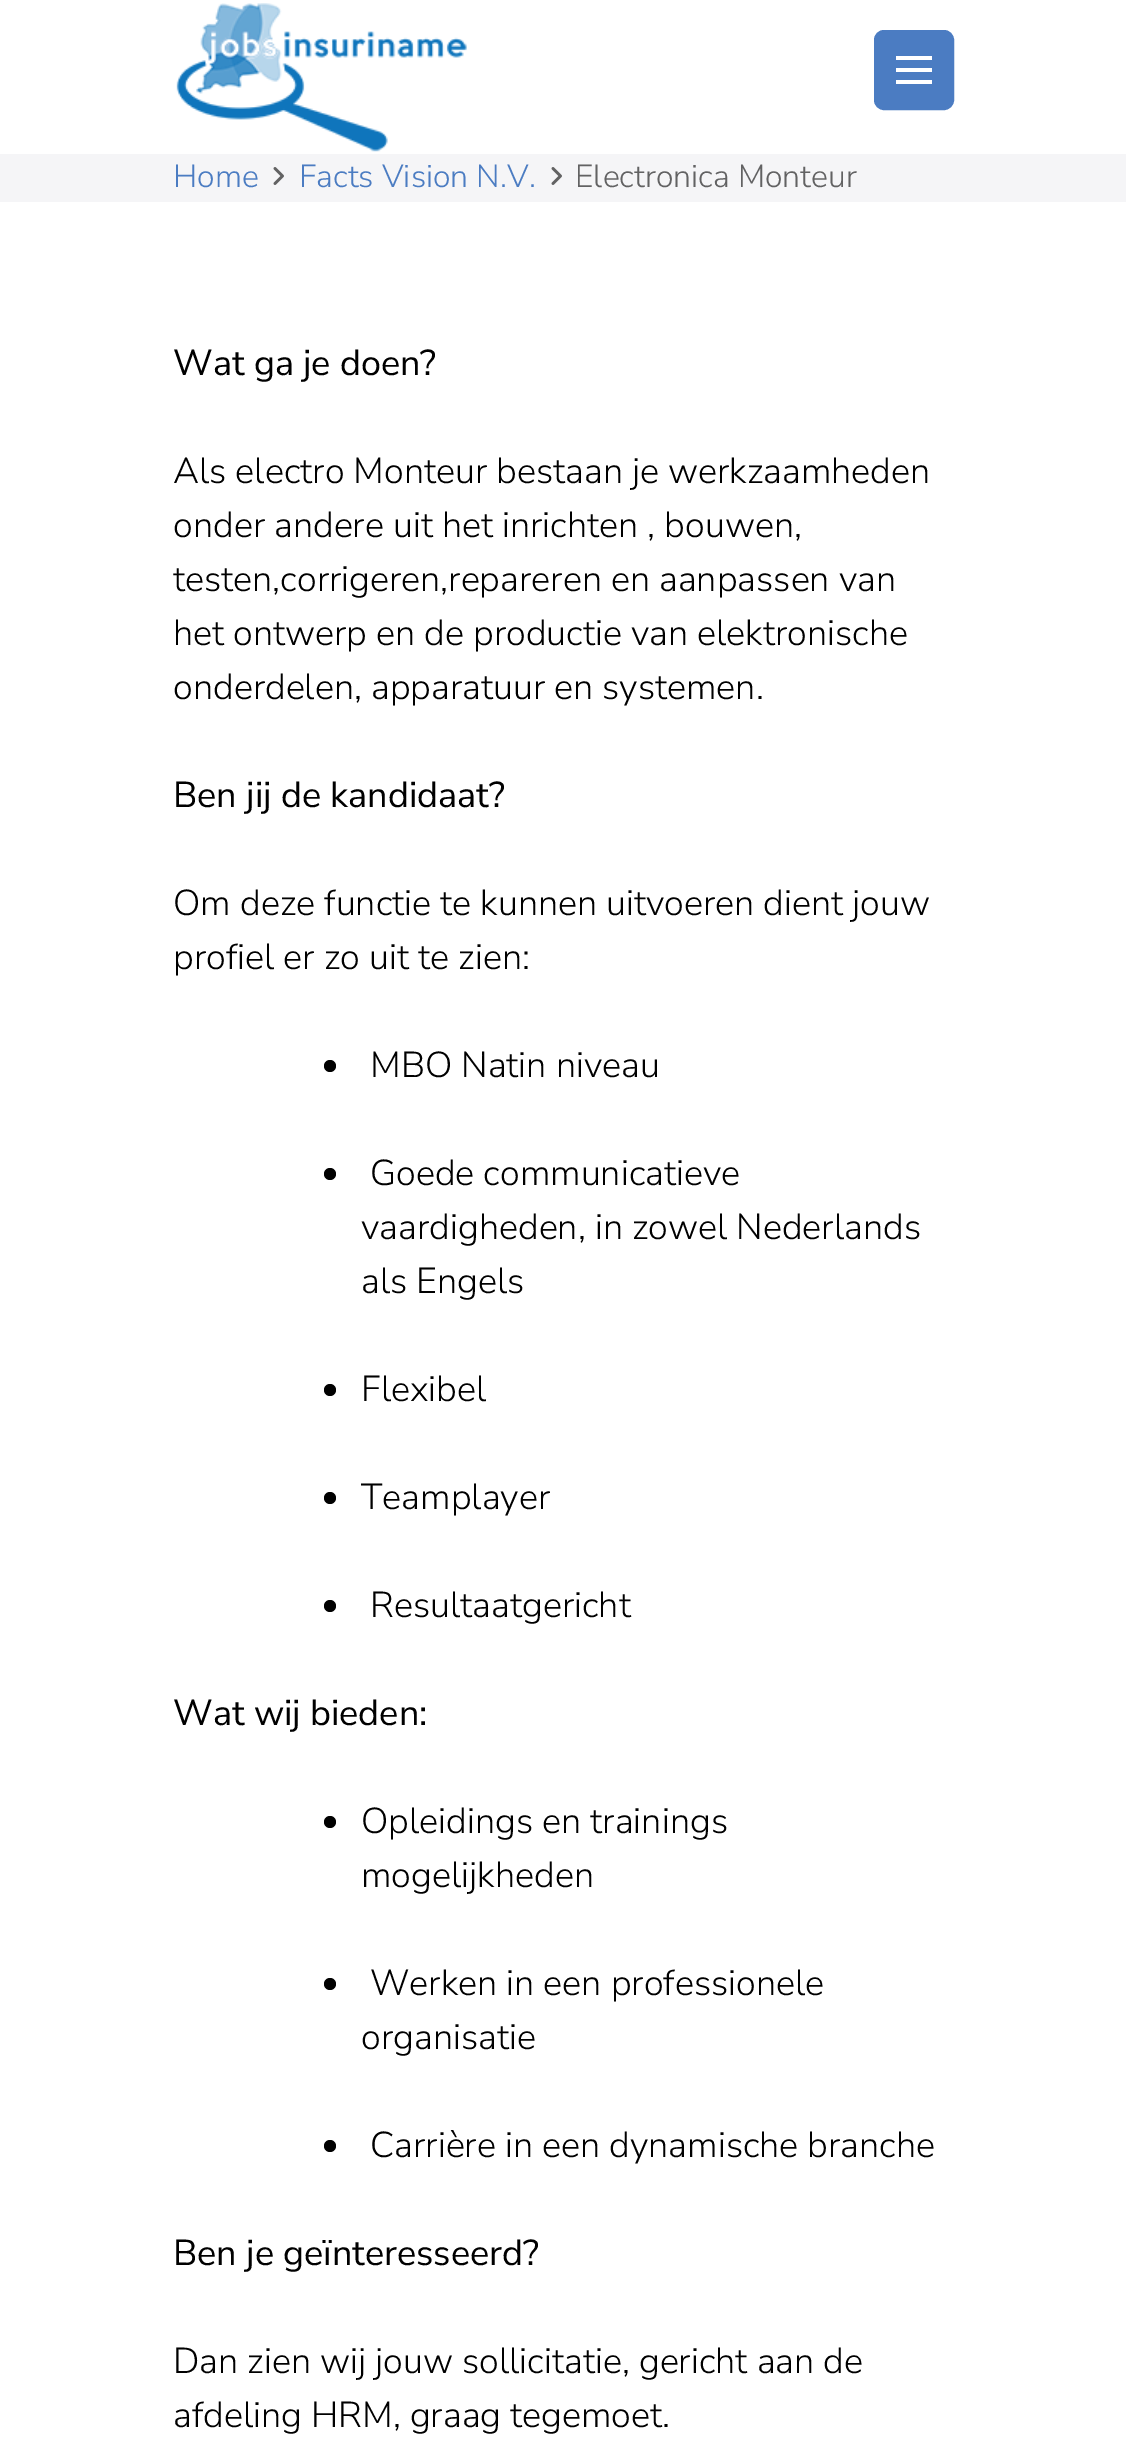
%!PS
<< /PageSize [1126 2444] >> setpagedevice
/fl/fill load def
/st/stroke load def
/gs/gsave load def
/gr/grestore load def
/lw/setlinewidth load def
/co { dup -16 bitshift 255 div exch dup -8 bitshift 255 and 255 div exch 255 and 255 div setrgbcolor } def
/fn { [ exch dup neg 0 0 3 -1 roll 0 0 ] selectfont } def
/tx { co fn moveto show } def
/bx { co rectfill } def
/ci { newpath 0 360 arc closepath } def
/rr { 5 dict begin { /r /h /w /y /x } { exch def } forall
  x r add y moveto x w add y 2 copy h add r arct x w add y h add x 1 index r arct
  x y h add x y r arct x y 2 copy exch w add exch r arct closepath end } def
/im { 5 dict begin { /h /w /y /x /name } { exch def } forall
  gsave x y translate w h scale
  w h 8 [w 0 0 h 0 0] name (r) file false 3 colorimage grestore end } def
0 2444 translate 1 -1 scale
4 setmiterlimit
0 0 1126 2444 16#FFFFFF bx
(media/1.raw) 176 3 291 149 im
16#4B7CC2 co
875 31 78 78 9 rr gs fl gr
2 lw
st
896 56 36 4 16#FFFFFF bx
896 68 36 4 16#FFFFFF bx
896 80 36 4 16#FFFFFF bx
0 154 1126 48 16#F5F5F7 bx
(media/2.raw) 273 167 11 18 im
(media/2.raw) 551 167 11 18 im
16#000000 co
330 1066 6 ci fl
330 1174 6 ci fl
330 1390 6 ci fl
330 1498 6 ci fl
330 1606 6 ci fl
330 1822 6 ci fl
330 1984 6 ci fl
330 2146 6 ci fl
(Home) 173 187 /NunitoSans-Light 32 16#4B7CC2 tx
(Facts Vision N.V.) 299 187 /NunitoSans-Light 32 16#4B7CC2 tx
(Electronica Monteur) 575 187 /NunitoSans-Light 32 16#626263 tx
(Wat ga je doen?) 173 375 /NunitoSans-Regular 36 16#000000 tx
(Als electro Monteur bestaan je werkzaamheden) 173 483 /NunitoSans-Light 36 16#000000 tx
(onder andere uit het inrichten , bouwen,) 173 537 /NunitoSans-Light 36 16#000000 tx
(testen,corrigeren,repareren en aanpassen van) 173 591 /NunitoSans-Light 36 16#000000 tx
(het ontwerp en de productie van elektronische) 173 645 /NunitoSans-Light 36 16#000000 tx
(onderdelen, apparatuur en systemen.) 173 699 /NunitoSans-Light 36 16#000000 tx
(Ben jij de kandidaat?) 173 807 /NunitoSans-Regular 36 16#000000 tx
(Om deze functie te kunnen uitvoeren dient jouw) 173 915 /NunitoSans-Light 36 16#000000 tx
(profiel er zo uit te zien:) 173 969 /NunitoSans-Light 36 16#000000 tx
(MBO Natin niveau) 370 1077 /NunitoSans-Light 36 16#000000 tx
(Goede communicatieve) 370 1185 /NunitoSans-Light 36 16#000000 tx
(vaardigheden, in zowel Nederlands) 361 1239 /NunitoSans-Light 36 16#000000 tx
(als Engels) 361 1293 /NunitoSans-Light 36 16#000000 tx
(Flexibel) 361 1401 /NunitoSans-Light 36 16#000000 tx
(Teamplayer) 361 1509 /NunitoSans-Light 36 16#000000 tx
(Resultaatgericht) 370 1617 /NunitoSans-Light 36 16#000000 tx
(Wat wij bieden:) 173 1725 /NunitoSans-Regular 36 16#000000 tx
(Opleidings en trainings) 361 1833 /NunitoSans-Light 36 16#000000 tx
(mogelijkheden) 361 1887 /NunitoSans-Light 36 16#000000 tx
(Werken in een professionele) 370 1995 /NunitoSans-Light 36 16#000000 tx
(organisatie) 361 2049 /NunitoSans-Light 36 16#000000 tx
(Carrière in een dynamische branche) 370 2157 /NunitoSans-Light 36 16#000000 tx
(Ben je geïnteresseerd?) 173 2265 /NunitoSans-Regular 36 16#000000 tx
(Dan zien wij jouw sollicitatie, gericht aan de) 173 2373 /NunitoSans-Light 36 16#000000 tx
(afdeling HRM, graag tegemoet.) 173 2427 /NunitoSans-Light 36 16#000000 tx
showpage
